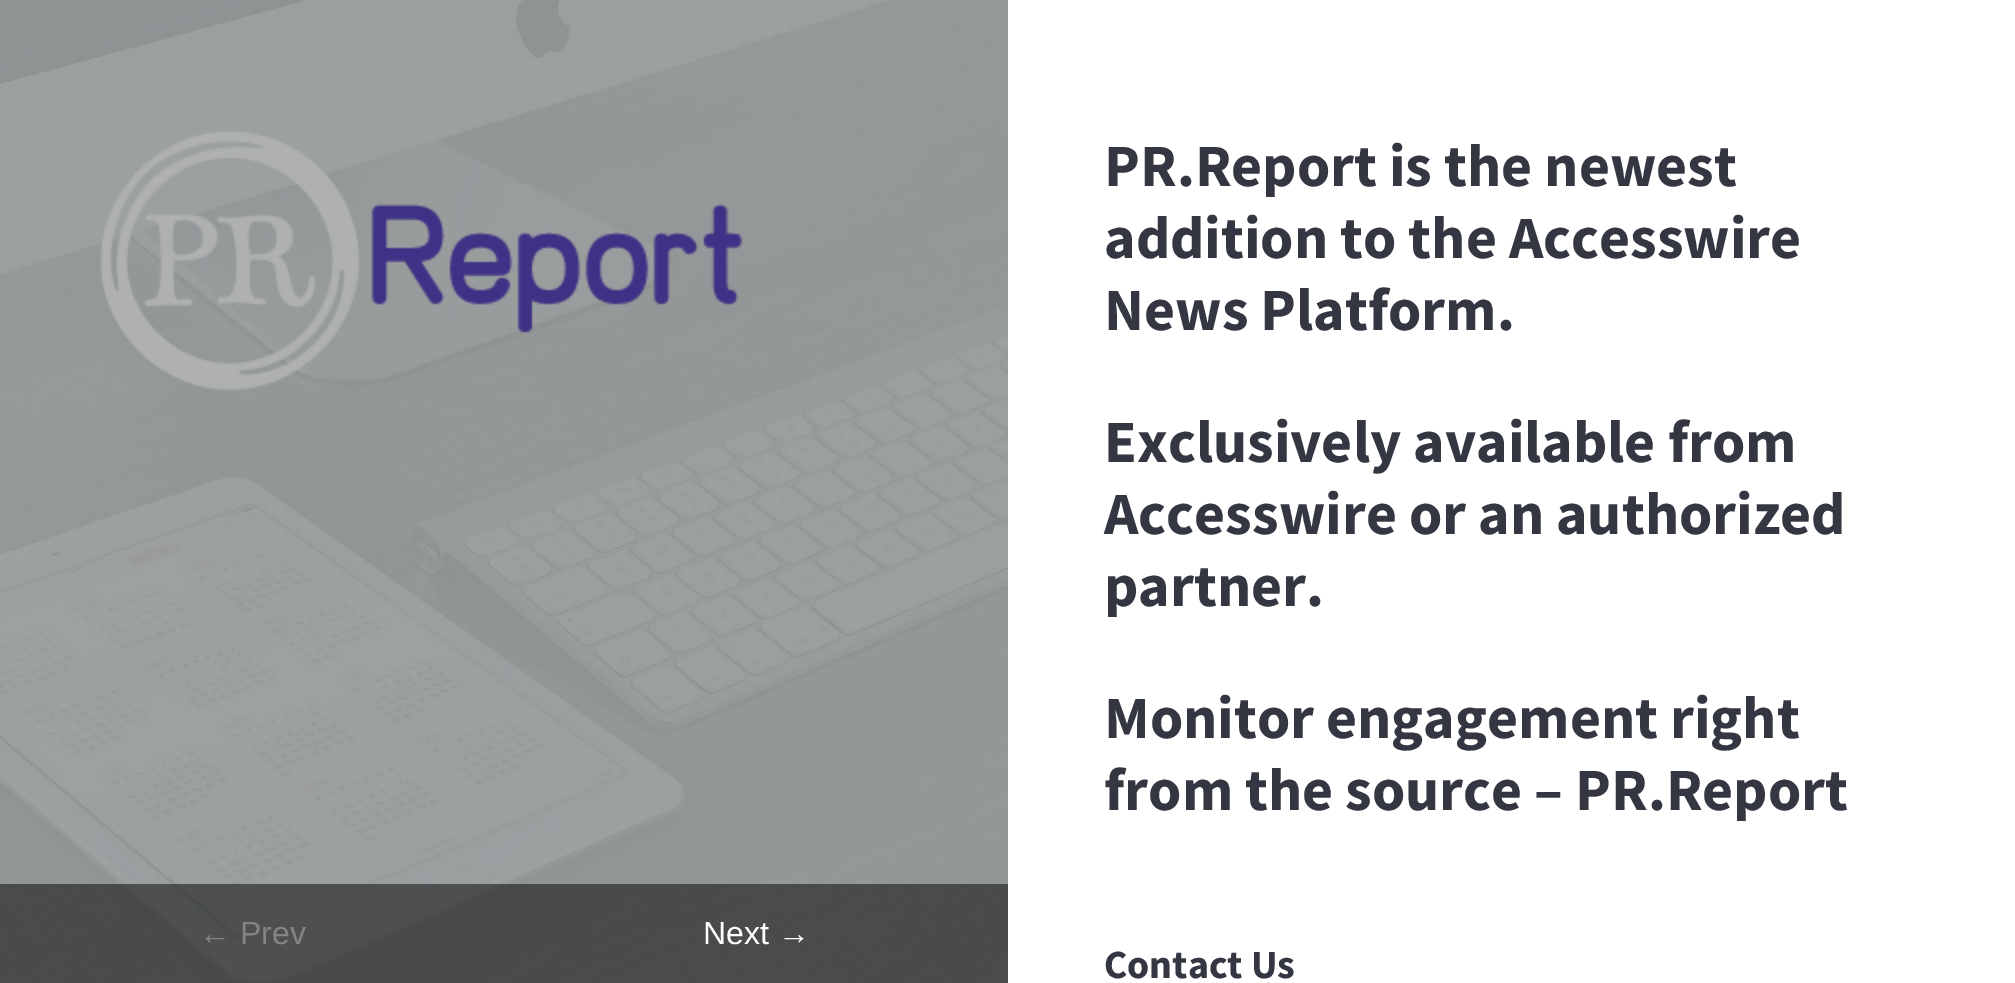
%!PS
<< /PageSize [2015 983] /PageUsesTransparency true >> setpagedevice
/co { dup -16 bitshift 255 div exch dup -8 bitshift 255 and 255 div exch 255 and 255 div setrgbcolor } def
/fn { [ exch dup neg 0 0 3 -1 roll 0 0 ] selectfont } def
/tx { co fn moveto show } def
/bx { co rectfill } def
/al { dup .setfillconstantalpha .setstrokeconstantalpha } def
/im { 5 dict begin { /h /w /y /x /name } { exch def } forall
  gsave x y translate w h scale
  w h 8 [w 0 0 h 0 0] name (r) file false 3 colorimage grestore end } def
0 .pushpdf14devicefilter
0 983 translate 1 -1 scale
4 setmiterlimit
0 0 2015 983 16#FFFFFF bx
(media/1.raw) 0 0 1008 983 im
(media/2.raw) 100 131 643 260 im
0.5 al
0 884 504 99 16#000000 bx
504 884 504 99 16#000000 bx
1 al
(PR.Report is the newest) 1104 186 /SourceSansPro-Bold 60 16#343642 tx
(addition to the Accesswire) 1104 258 /SourceSansPro-Bold 60 16#343642 tx
(News Platform.) 1104 330 /SourceSansPro-Bold 60 16#343642 tx
(Exclusively available from) 1104 462 /SourceSansPro-Bold 60 16#343642 tx
(Accesswire or an authorized) 1104 534 /SourceSansPro-Bold 60 16#343642 tx
(partner.) 1104 606 /SourceSansPro-Bold 60 16#343642 tx
(Monitor engagement right) 1104 738 /SourceSansPro-Bold 60 16#343642 tx
(from the source – PR.Report) 1104 810 /SourceSansPro-Bold 60 16#343642 tx
(Contact Us) 1104 978 /SourceSansPro-Bold 40 16#343642 tx
(← Prev) 199 944 /LiberationSans-Regular 32 16#838484 tx
(Next →) 703 944 /LiberationSans-Regular 32 16#FFFFFF tx
.poppdf14devicefilter showpage
